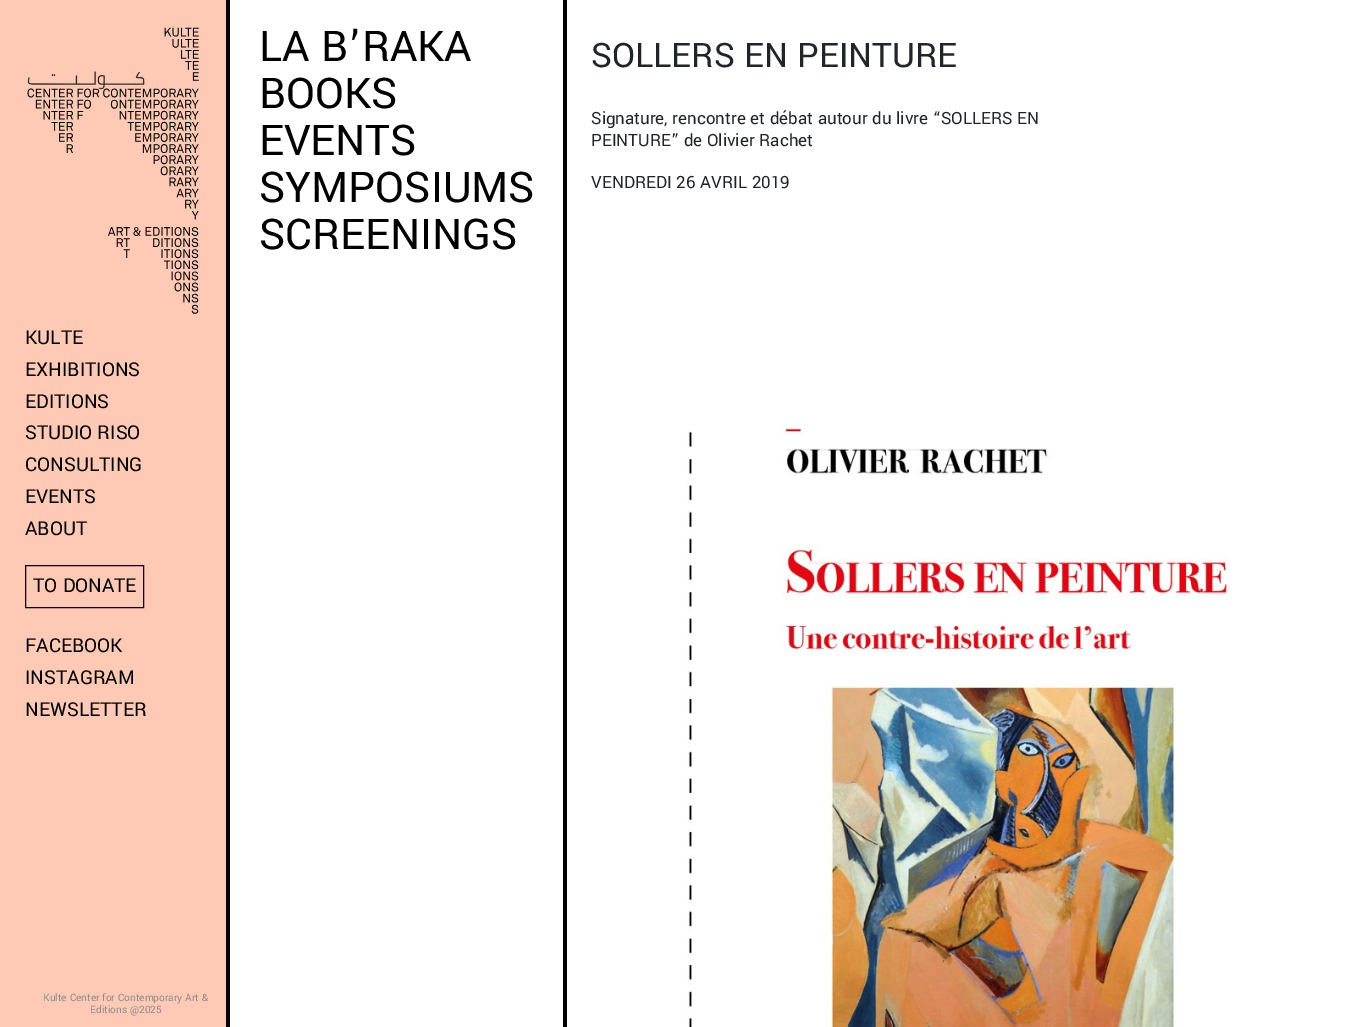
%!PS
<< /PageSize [1357 1027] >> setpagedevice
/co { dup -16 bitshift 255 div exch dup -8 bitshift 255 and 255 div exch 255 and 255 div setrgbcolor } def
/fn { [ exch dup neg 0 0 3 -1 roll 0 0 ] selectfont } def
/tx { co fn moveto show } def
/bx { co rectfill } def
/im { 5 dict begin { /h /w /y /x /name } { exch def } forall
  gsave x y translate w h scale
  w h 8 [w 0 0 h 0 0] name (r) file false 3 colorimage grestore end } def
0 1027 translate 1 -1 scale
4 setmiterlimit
0 0 1357 1027 16#FFFFFF bx
563 0 4 1027 16#000000 bx
226 0 4 1027 16#000000 bx
(media/1.raw) 686 423 543 604 im
0 0 226 1027 16#FECAB5 bx
(media/2.raw) 27 27 172 287 im
16#000000 co
25.5 565.5 118 42 rectstroke
(LA B’RAKA) 259 61 /Yantramanav-Regular 47 16#000000 tx
(BOOKS) 259 108 /Yantramanav-Regular 47 16#000000 tx
(EVENTS) 259 155 /Yantramanav-Regular 47 16#000000 tx
(SYMPOSIUMS) 259 202 /Yantramanav-Regular 47 16#000000 tx
(SCREENINGS) 259 249 /Yantramanav-Regular 47 16#000000 tx
(SOLLERS EN PEINTURE) 591 67 /Yantramanav-Regular 37.5 16#212529 tx
(Signature, rencontre et débat autour du livre “SOLLERS EN) 591 124 /Yantramanav-Regular 18.75 16#212529 tx
(PEINTURE” de Olivier Rachet) 591 146 /Yantramanav-Regular 18.75 16#212529 tx
(VENDREDI 26 AVRIL 2019) 591 188 /Yantramanav-Regular 18.75 16#212529 tx
(KULTE) 25 344 /Yantramanav-Regular 21.25 16#000000 tx
(EXHIBITIONS) 25 376 /Yantramanav-Regular 21.25 16#000000 tx
(EDITIONS) 25 408 /Yantramanav-Regular 21.25 16#000000 tx
(STUDIO RISO) 25 439 /Yantramanav-Regular 21.25 16#000000 tx
(CONSULTING) 25 471 /Yantramanav-Regular 21.25 16#000000 tx
(EVENTS) 25 503 /Yantramanav-Regular 21.25 16#000000 tx
(ABOUT) 25 535 /Yantramanav-Regular 21.25 16#000000 tx
(TO DONATE) 33 592 /Yantramanav-Regular 21.25 16#000000 tx
(FACEBOOK) 25 652 /Yantramanav-Regular 21.25 16#000000 tx
(INSTAGRAM) 25 684 /Yantramanav-Regular 21.25 16#000000 tx
(NEWSLETTER) 25 716 /Yantramanav-Regular 21.25 16#000000 tx
(Kulte Center for Contemporary Art &) 43 1001 /Yantramanav-Regular 11.25 16#908D8C tx
(Editions @2025) 90 1013 /Yantramanav-Regular 11.25 16#908D8C tx
showpage
